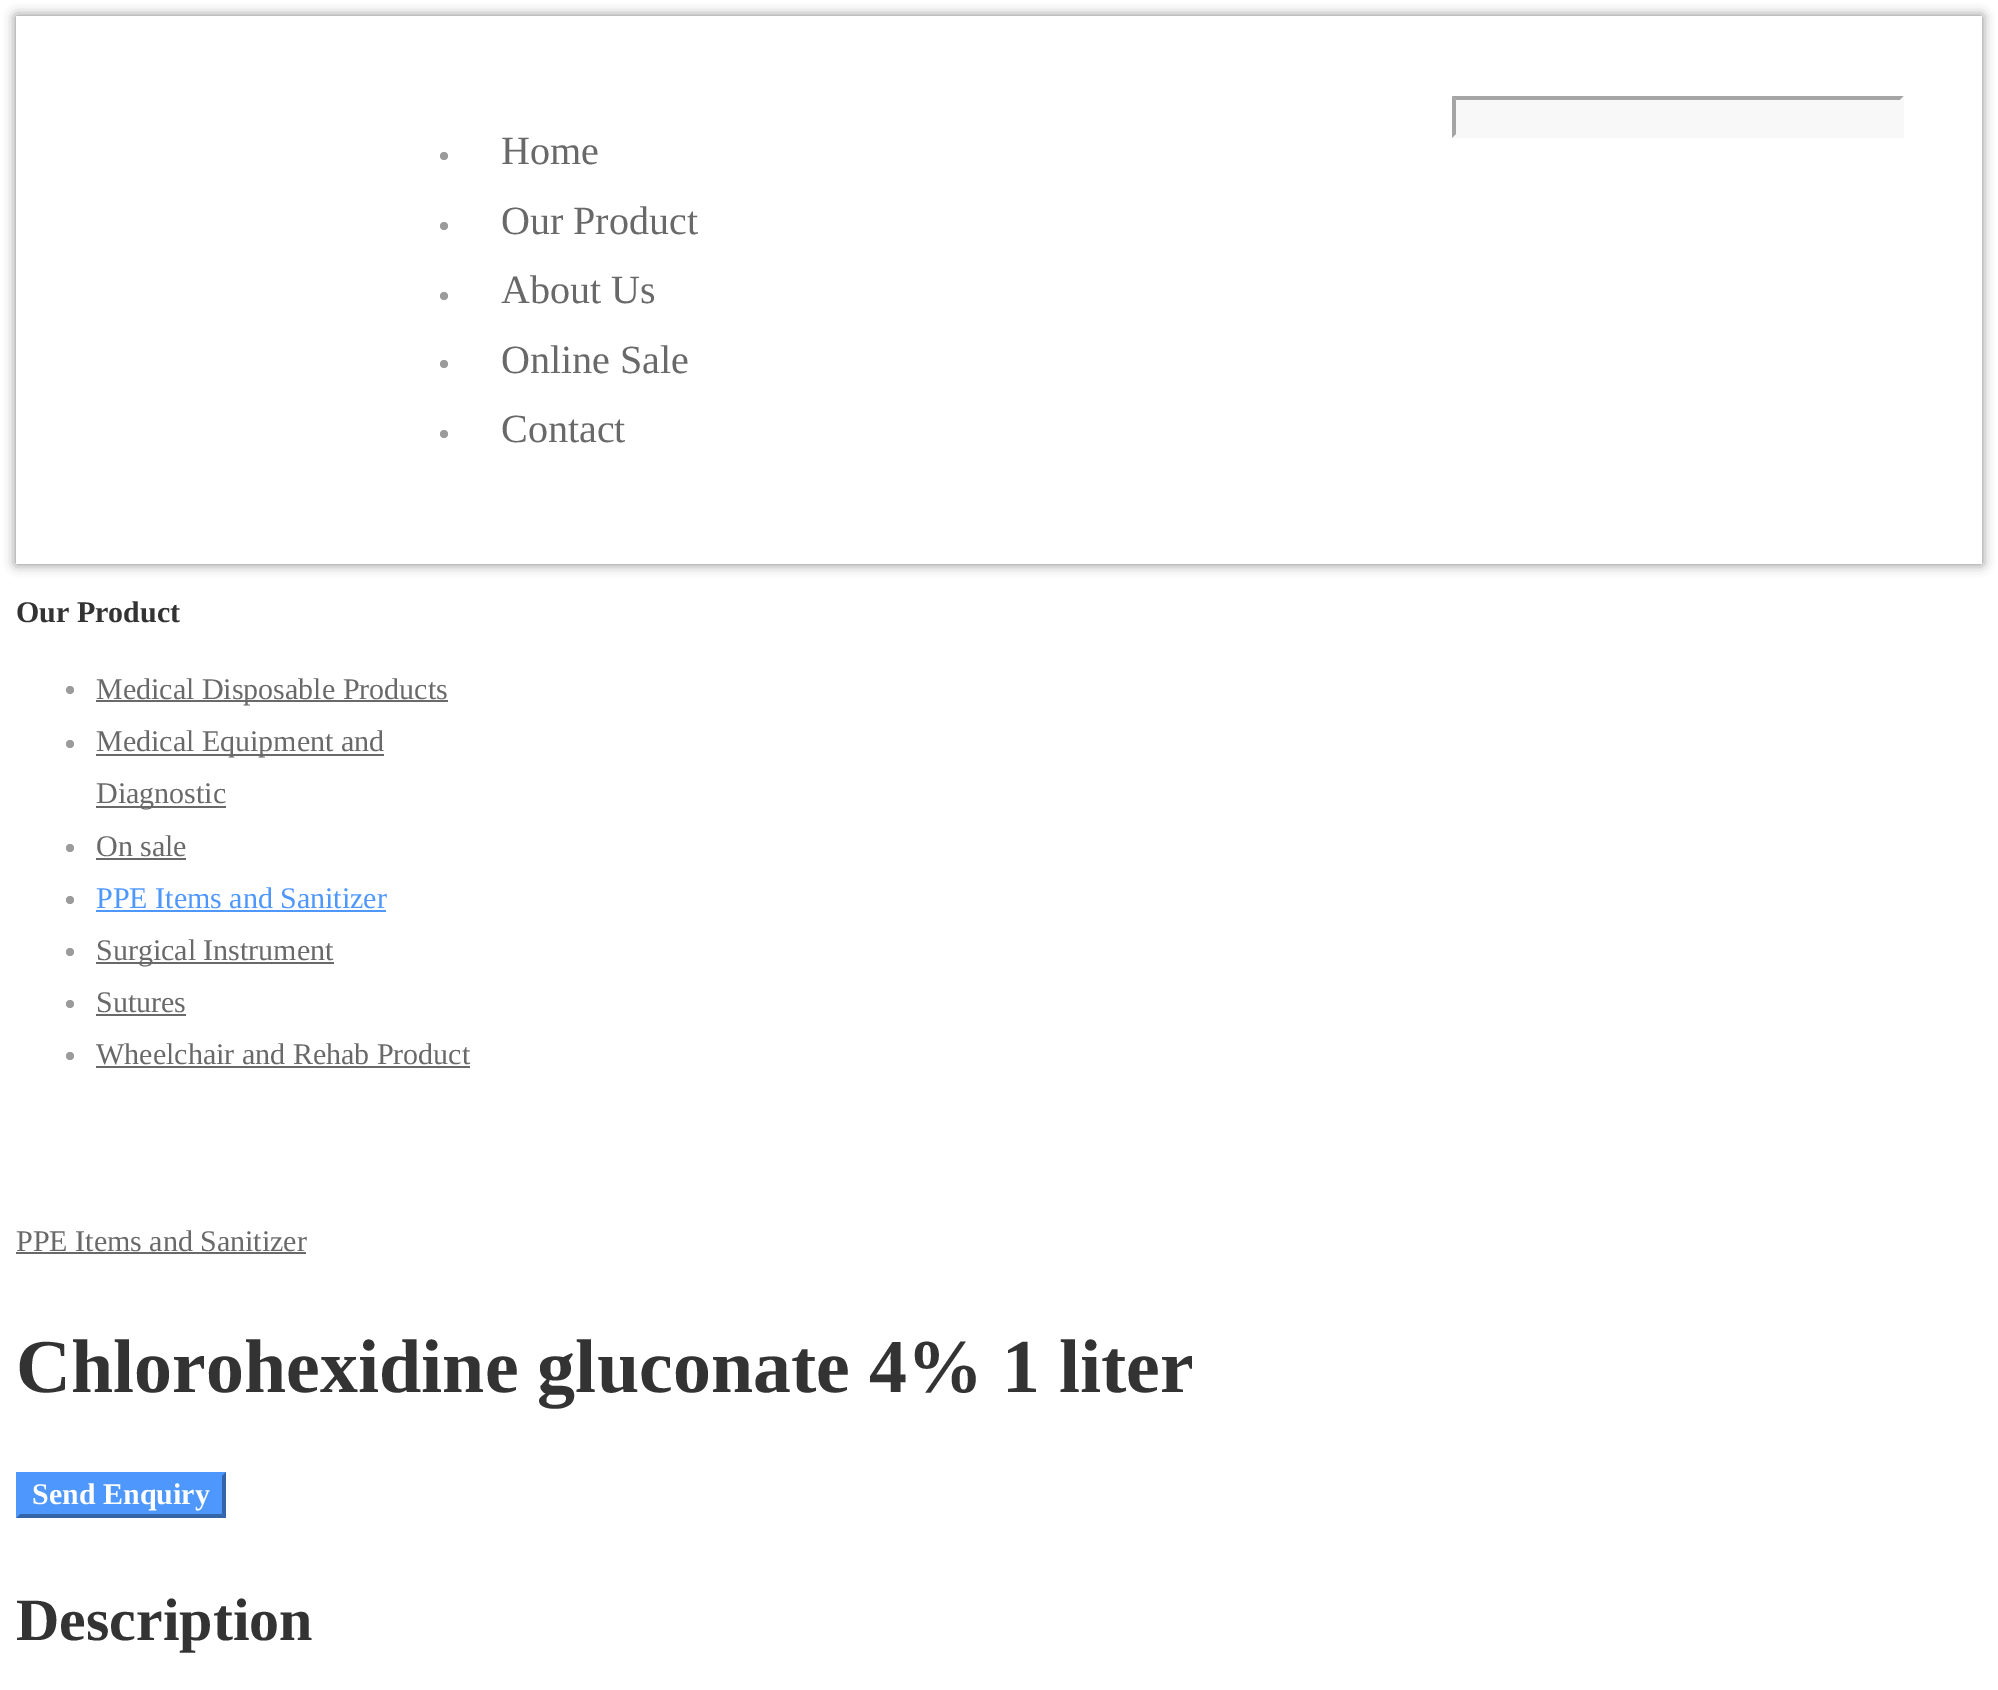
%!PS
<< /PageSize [1998 1690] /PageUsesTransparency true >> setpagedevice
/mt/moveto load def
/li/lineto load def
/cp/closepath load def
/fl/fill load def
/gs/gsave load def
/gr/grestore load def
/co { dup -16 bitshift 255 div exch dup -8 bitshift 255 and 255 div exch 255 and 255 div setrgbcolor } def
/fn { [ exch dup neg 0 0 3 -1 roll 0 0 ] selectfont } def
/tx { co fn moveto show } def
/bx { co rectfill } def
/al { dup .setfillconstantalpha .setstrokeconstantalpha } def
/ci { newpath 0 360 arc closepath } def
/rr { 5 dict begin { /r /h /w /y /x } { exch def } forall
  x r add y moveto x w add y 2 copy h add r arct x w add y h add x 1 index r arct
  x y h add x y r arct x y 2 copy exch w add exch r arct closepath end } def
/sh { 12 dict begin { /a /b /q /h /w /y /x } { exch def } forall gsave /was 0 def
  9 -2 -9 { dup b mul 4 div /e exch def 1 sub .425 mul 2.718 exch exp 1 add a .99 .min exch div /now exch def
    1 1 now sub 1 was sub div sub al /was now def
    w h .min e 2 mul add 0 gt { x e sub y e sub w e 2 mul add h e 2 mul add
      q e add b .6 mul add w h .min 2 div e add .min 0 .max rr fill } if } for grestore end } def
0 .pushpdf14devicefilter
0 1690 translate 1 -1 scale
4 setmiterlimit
0 0 1998 1690 16#FFFFFF bx
gs
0 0 mt 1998 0 li 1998 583 li 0 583 li cp 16 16 mt 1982 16 li 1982 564 li 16 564 li cp eoclip newpath
16#000000 co
16 16 1966 548 0 6 .5 sh
gr
1452 96 452 42 16#F8F8F8 bx
16#A5A5A5 co
1452 96 mt 1904 96 li 1900 100 li 1456 100 li cp fl
16#F8F8F8 co
1904 96 mt 1904 138 li 1900 134 li 1900 100 li cp fl
16#A5A5A5 co
1452 138 mt 1452 96 li 1456 100 li 1456 134 li cp fl
16#9B9B9B co
444 156 4 ci fl
444 226 4 ci fl
444 296 4 ci fl
444 364 4 ci fl
444 434 4 ci fl
70 690 4 ci fl
96 700 352 2 16#696969 bx
16#9B9B9B co
70 744 4 ci fl
96 754 288 2 16#696969 bx
96 806 130 2 16#696969 bx
16#9B9B9B co
70 848 4 ci fl
96 858 90 2 16#696969 bx
16#9B9B9B co
70 900 4 ci fl
96 910 290 2 16#4E97FD bx
16#9B9B9B co
70 952 4 ci fl
96 962 238 2 16#696969 bx
16#9B9B9B co
70 1004 4 ci fl
96 1014 90 2 16#696969 bx
16#9B9B9B co
70 1056 4 ci fl
96 1066 374 2 16#696969 bx
16 1252 290 2 16#696969 bx
16 1472 210 46 16#4E97FD bx
16#3465A9 co
226 1472 mt 226 1518 li 222 1514 li 222 1476 li cp fl
226 1518 mt 16 1518 li 20 1514 li 222 1514 li cp fl
16#4E97FD co
16 1518 mt 16 1472 li 20 1476 li 20 1514 li cp fl
(Home) 501 164 /LiberationSerif-Regular 40 16#696969 tx
(Our Product) 501 234 /LiberationSerif-Regular 40 16#696969 tx
(About Us) 501 303 /LiberationSerif-Regular 40 16#696969 tx
(Online Sale) 501 373 /LiberationSerif-Regular 40 16#696969 tx
(Contact) 501 442 /LiberationSerif-Regular 40 16#696969 tx
(Our Product) 16 622 /LiberationSerif-Bold 30 16#333333 tx
(Medical Disposable Products) 96 699 /LiberationSerif-Regular 30 16#696969 tx
(Medical Equipment and) 96 751 /LiberationSerif-Regular 30 16#696969 tx
(Diagnostic) 96 803 /LiberationSerif-Regular 30 16#696969 tx
(On sale) 96 856 /LiberationSerif-Regular 30 16#696969 tx
(PPE Items and Sanitizer) 96 908 /LiberationSerif-Regular 30 16#4E97FD tx
(Surgical Instrument) 96 960 /LiberationSerif-Regular 30 16#696969 tx
(Sutures) 96 1012 /LiberationSerif-Regular 30 16#696969 tx
(Wheelchair and Rehab Product) 96 1064 /LiberationSerif-Regular 30 16#696969 tx
(PPE Items and Sanitizer) 16 1251 /LiberationSerif-Regular 30 16#696969 tx
(Chlorohexidine gluconate 4% 1 liter) 16 1392 /LiberationSerif-Bold 76 16#333333 tx
(Send Enquiry) 32 1504 /LiberationSerif-Bold 30 16#FFFFFF tx
(Description) 16 1640 /LiberationSerif-Bold 60 16#333333 tx
.poppdf14devicefilter showpage
